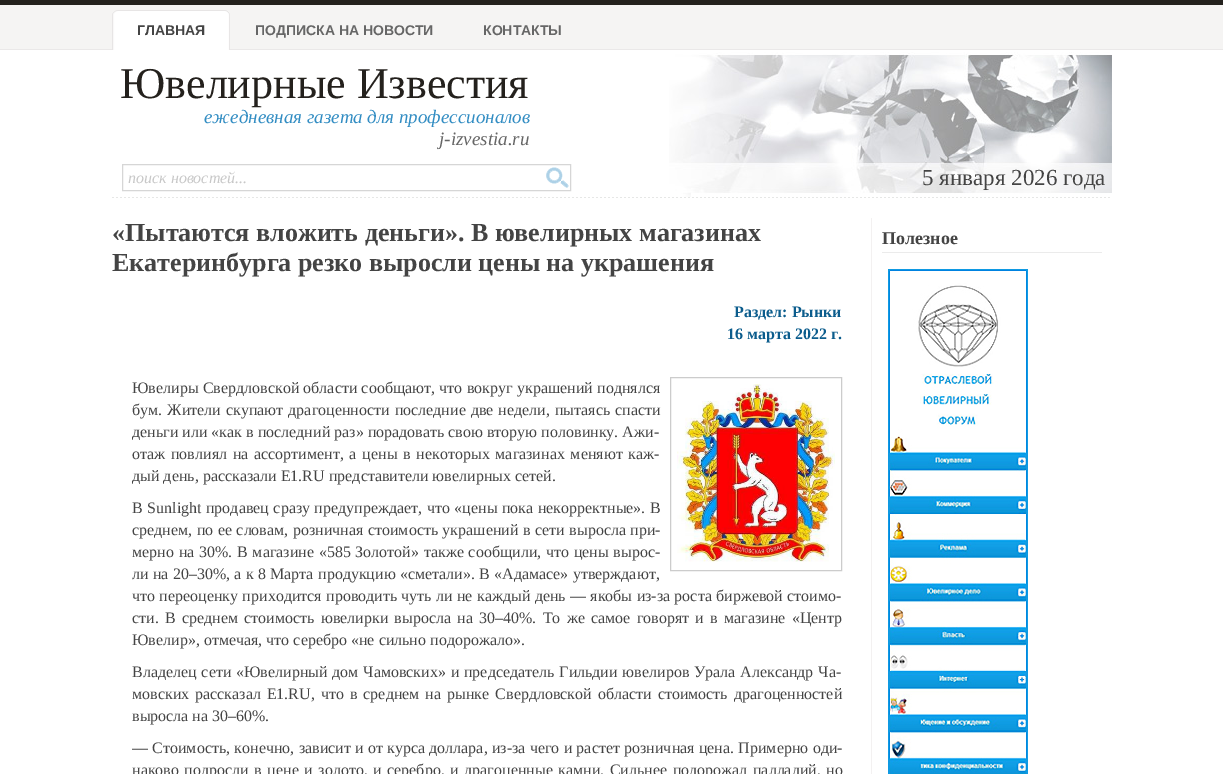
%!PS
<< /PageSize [1223 774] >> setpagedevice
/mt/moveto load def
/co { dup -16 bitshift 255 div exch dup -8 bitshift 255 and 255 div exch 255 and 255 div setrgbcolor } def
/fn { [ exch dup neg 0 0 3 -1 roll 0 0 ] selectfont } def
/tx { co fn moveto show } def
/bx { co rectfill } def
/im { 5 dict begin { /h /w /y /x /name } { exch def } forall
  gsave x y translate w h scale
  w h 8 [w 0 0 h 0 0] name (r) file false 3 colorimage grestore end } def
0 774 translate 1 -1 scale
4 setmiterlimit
0 0 1223 774 16#FFFFFF bx
(media/1.raw) 0 0 1223 50 im
(media/2.raw) 112 10 11 40 im
(media/3.raw) 123 10 107 40 im
16#D6D6D6 co
122.5 164.5 448 26 rectstroke
(media/4.raw) 546 167 23 21 im
(media/5.raw) 669 52 443 145 im
(media/6.raw) 112 197 998 1 im
16#CCCCCC co
670.5 377.5 171 193 rectstroke
(media/7.raw) 677 384 158 178 im
871 218 1 556 16#F3F1F1 bx
882 252 220 1 16#EBEBEB bx
(media/8.raw) 888 269 140 505 im
(ГЛАВНАЯ) 137 35 /LiberationSans-Bold 14 16#444444 tx
(ПОДПИСКА НА НОВОСТИ) 255 35 /LiberationSans-Bold 14 16#666666 tx
(КОНТАКТЫ) 483 35 /LiberationSans-Bold 14 16#666666 tx
(Ювелирные Известия) 120 98 /LiberationSerif-Regular 44 16#24211D tx
(ежедневная газета для профессионалов) 204 123 /LiberationSerif-Italic 19 16#328DC3 tx
(j-izvestia.ru) 439 145 /LiberationSerif-Italic 19 16#666666 tx
(поиск новостей...) 128 183 /LiberationSerif-Italic 16 16#C8C8C8 tx
(5 января 2026 года) 922 185 /LiberationSerif-Regular 23 16#444444 tx
(«Пытаются вложить деньги». В ювелирных магазинах) 112 241 /LiberationSerif-Bold 26 16#444444 tx
(Екатеринбурга резко выросли цены на украшения) 112 271 /LiberationSerif-Bold 26 16#444444 tx
(Раздел: Рынки) 734 317 /LiberationSerif-Bold 16 16#0C5D8D tx
(16 марта 2022 г.) 727 339 /LiberationSerif-Bold 16 16#0C5D8D tx
/LiberationSerif-Regular 16 fn
16#444444 co
132 393 mt .25 0 32 (Ювелиры Свердловской области сообщают, что вокруг украшений поднялся) widthshow
132 415 mt 1 0 32 (бум. Жители скупают драгоценности последние две недели, пытаясь спасти) widthshow
(деньги или «как в последний раз» порадовать свою вторую половинку. Ажи-) 132 437 /LiberationSerif-Regular 16 16#444444 tx
132 459 mt 1.75 0 32 (отаж повлиял на ассортимент, а цены в некоторых магазинах меняют каж-) widthshow
(дый день, рассказали E1.RU представители ювелирных сетей.) 132 481 /LiberationSerif-Regular 16 16#444444 tx
132 513 mt .5 0 32 (В Sunlight продавец сразу предупреждает, что «цены пока некорректные». В) widthshow
132 535 mt .5 0 32 (среднем, по ее словам, розничная стоимость украшений в сети выросла при-) widthshow
132 557 mt .75 0 32 (мерно на 30%. В магазине «585 Золотой» также сообщили, что цены вырос-) widthshow
132 579 mt .3 0 32 (ли на 20–30%, а к) widthshow
(8 Марта) 258 579 /LiberationSerif-Regular 16 16#444444 tx
318 579 mt .3 0 32 (продукцию «сметали». В «Адамасе» утверждают,) widthshow
132 601 mt .3 0 32 (что переоценку приходится проводить чуть ли не каждый день — якобы из-за роста биржевой стоимо-) widthshow
132 623 mt 2.25 0 32 (сти. В среднем стоимость ювелирки выросла на 30–40%. То же самое говорят и в магазине «Центр) widthshow
(Ювелир», отмечая, что серебро «не сильно подорожало».) 132 645 /LiberationSerif-Regular 16 16#444444 tx
132 677 mt .75 0 32 (Владелец сети «Ювелирный дом Чамовских» и председатель Гильдии ювелиров Урала Александр Ча-) widthshow
132 699 mt 2 0 32 (мовских рассказал E1.RU, что в среднем на рынке Свердловской области стоимость драгоценностей) widthshow
(выросла на 30–60%.) 132 721 /LiberationSerif-Regular 16 16#444444 tx
132 753 mt .25 0 32 (— Стоимость, конечно, зависит и от курса доллара, из-за чего и растет розничная цена. Примерно оди-) widthshow
132 775 mt 1.5 0 32 (наково подросли в цене и золото, и серебро, и драгоценные камни. Сильнее подорожал палладий, но) widthshow
(Полезное) 882 244 /LiberationSerif-Bold 18 16#444444 tx
showpage
